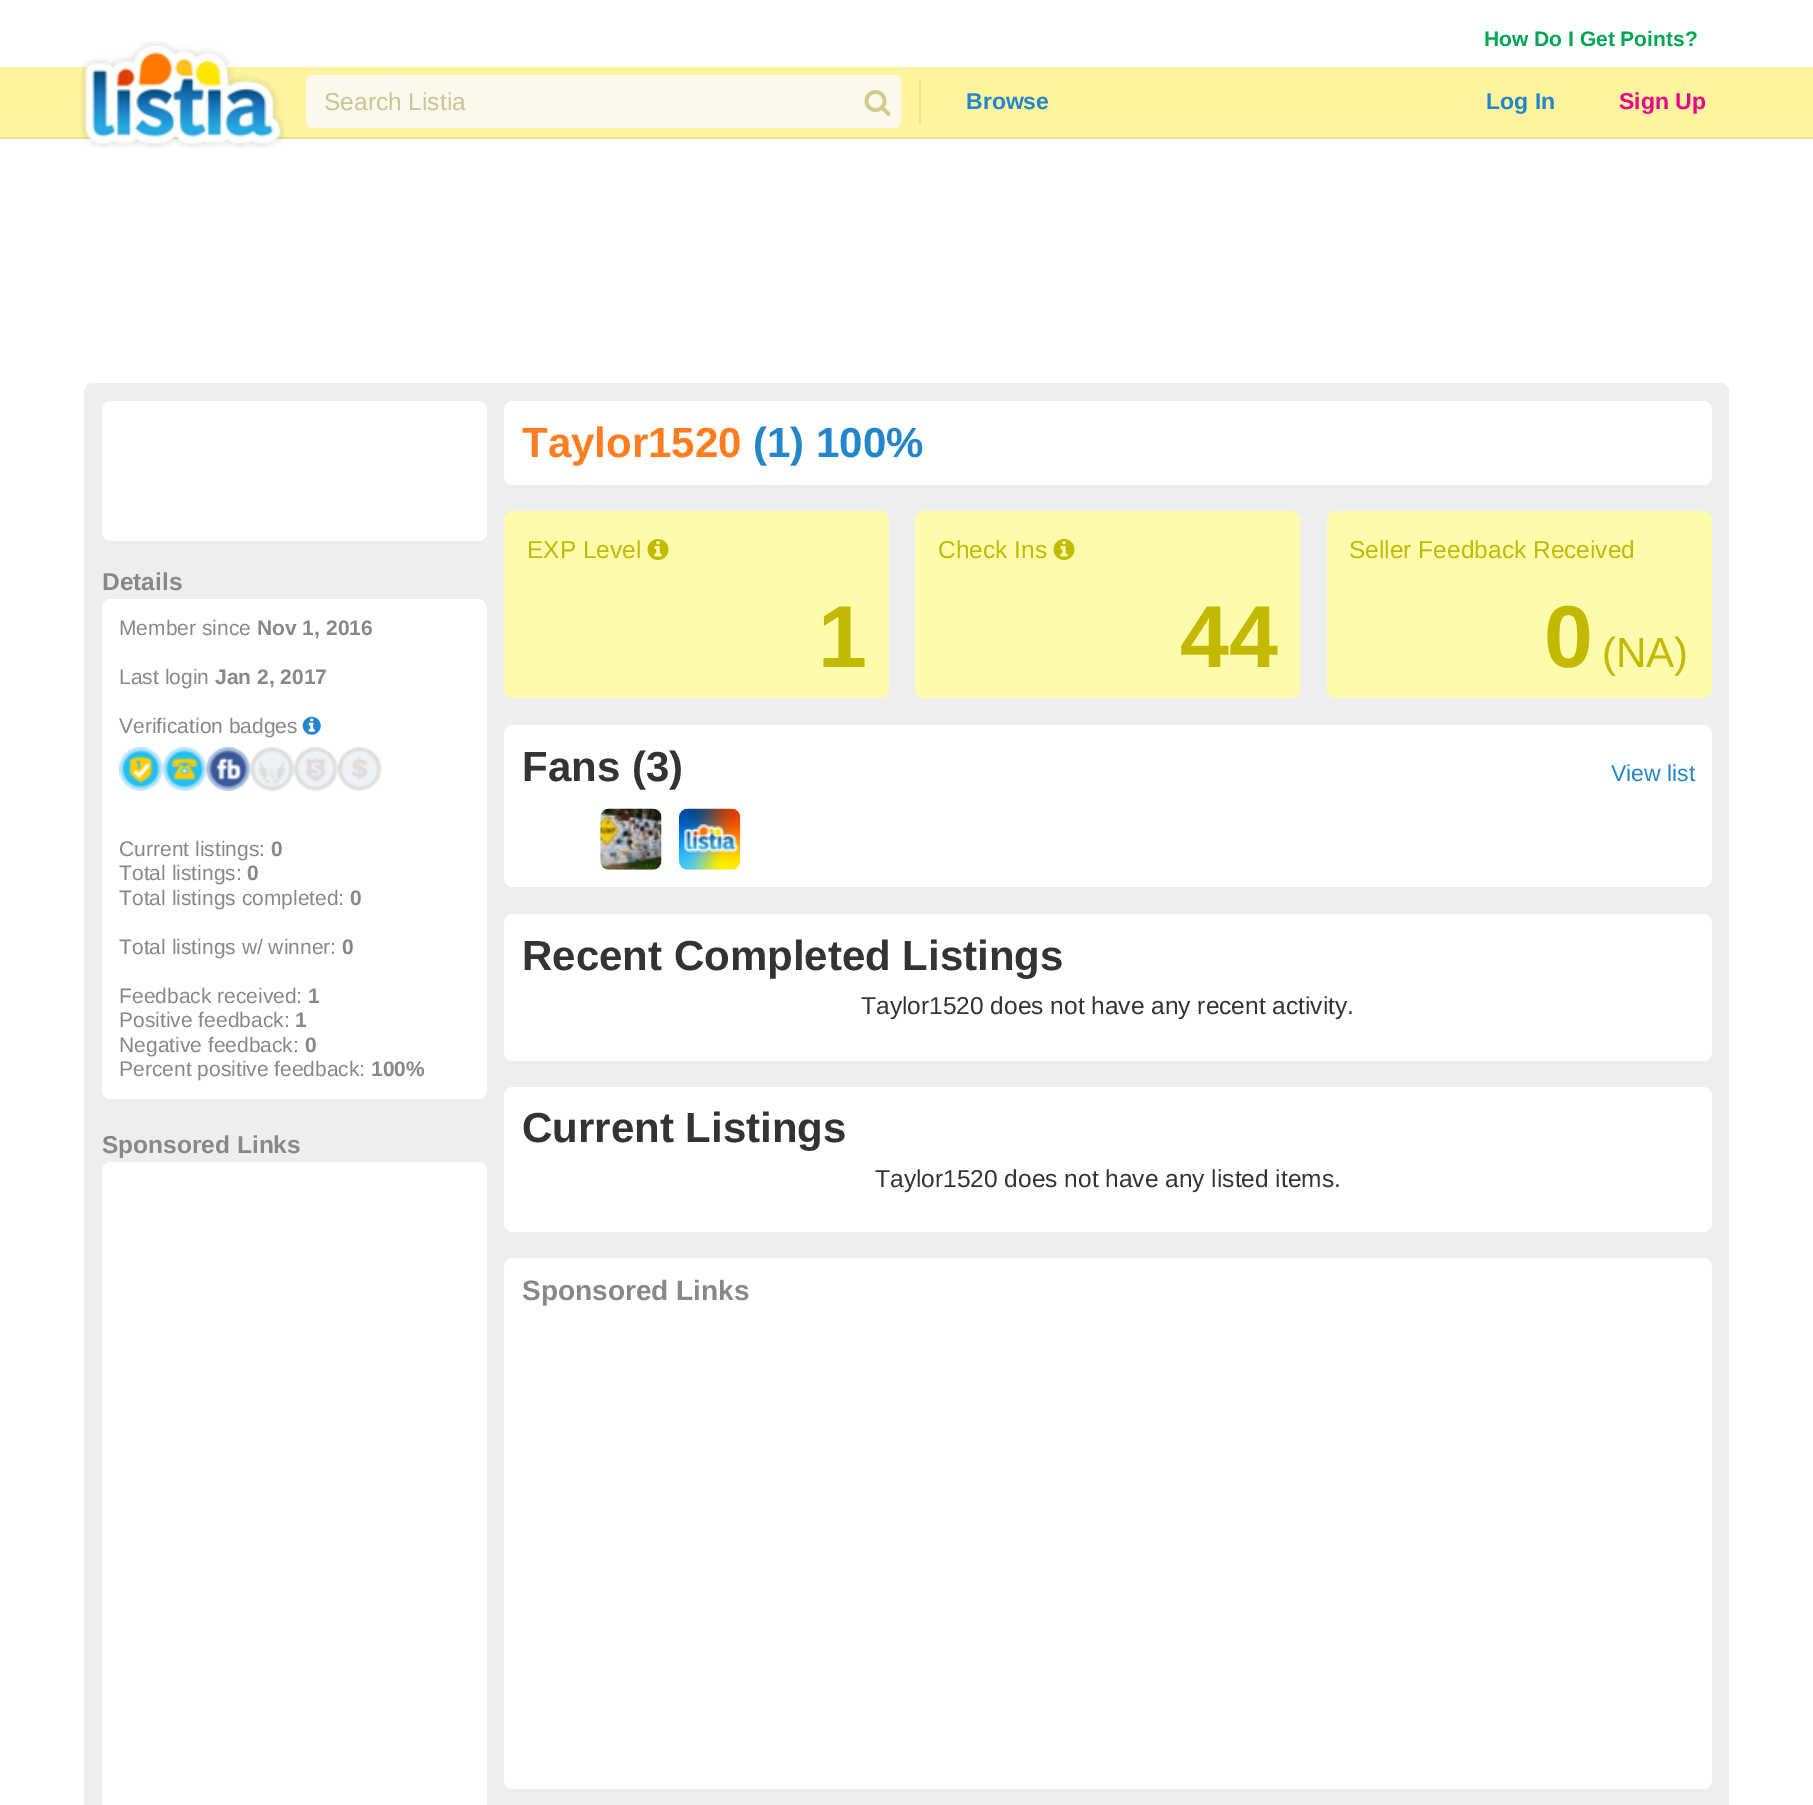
%!PS
<< /PageSize [1813 1805] >> setpagedevice
/fl/fill load def
/co { dup -16 bitshift 255 div exch dup -8 bitshift 255 and 255 div exch 255 and 255 div setrgbcolor } def
/fn { [ exch dup neg 0 0 3 -1 roll 0 0 ] selectfont } def
/tx { co fn moveto show } def
/bx { co rectfill } def
/rr { 5 dict begin { /r /h /w /y /x } { exch def } forall
  x r add y moveto x w add y 2 copy h add r arct x w add y h add x 1 index r arct
  x y h add x y r arct x y 2 copy exch w add exch r arct closepath end } def
/im { 5 dict begin { /h /w /y /x /name } { exch def } forall
  gsave x y translate w h scale
  w h 8 [w 0 0 h 0 0] name (r) file false 3 colorimage grestore end } def
0 1805 translate 1 -1 scale
4 setmiterlimit
0 0 1813 1805 16#FFFFFF bx
0 67 1813 70 16#FDF49D bx
0 137 1813 2 16#E7DF8F bx
(media/1.raw) 81 41 203 107 im
16#FBF9EC co
306 75 595 53 7 rr fl
(media/2.raw) 864 90 27 26 im
919 79 2 45 16#EFE688 bx
16#EEEEEE co
84 383 1645 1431 9 rr fl
16#FFFFFF co
102 401 385 140 9 rr fl
102 599 385 500 9 rr fl
(media/3.raw) 302 716 19 19 im
(media/4.raw) 119 747 44 44 im
(media/5.raw) 162 747 45 44 im
(media/6.raw) 206 747 45 44 im
(media/7.raw) 250 747 44 44 im
(media/8.raw) 294 747 44 44 im
(media/9.raw) 337 747 45 44 im
102 1162 385 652 9 rr fl
504 401 1208 84 9 rr fl
16#FFFBAD co
504 511 385 187 9 rr fl
(media/10.raw) 647 539 22 21 im
915 511 385 187 9 rr fl
(media/10.raw) 1053 539 22 21 im
1327 511 385 187 9 rr fl
16#FFFFFF co
504 725 1208 162 9 rr fl
(media/11.raw) 600 808 62 62 im
(media/12.raw) 679 808 62 62 im
504 914 1208 147 9 rr fl
504 1087 1208 145 9 rr fl
504 1258 1208 531 9 rr fl
(How Do I Get Points?) 1484 46 /LiberationSans-Bold 21 16#00A651 tx
(Search Listia) 324 110 /LiberationSans-Regular 24.5 16#CAC398 tx
(Browse) 966 109 /LiberationSans-Bold 23 16#2386CC tx
(Log In) 1486 109 /LiberationSans-Bold 23 16#2386CC tx
(Sign Up) 1619 109 /LiberationSans-Bold 23 16#EC008C tx
(Details) 102 590 /LiberationSans-Bold 24.5 16#888888 tx
(Member since) 119 635 /LiberationSans-Regular 21 16#888888 tx
(Nov 1, 2016) 257 635 /LiberationSans-Bold 21 16#888888 tx
(Last login) 119 684 /LiberationSans-Regular 21 16#888888 tx
(Jan 2, 2017) 215 684 /LiberationSans-Bold 21 16#888888 tx
(Verification badges) 119 733 /LiberationSans-Regular 21 16#888888 tx
(Current listings:) 119 856 /LiberationSans-Regular 21 16#888888 tx
(0) 271 856 /LiberationSans-Bold 21 16#888888 tx
(Total listings:) 119 880 /LiberationSans-Regular 21 16#888888 tx
(0) 247 880 /LiberationSans-Bold 21 16#888888 tx
(Total listings completed:) 119 905 /LiberationSans-Regular 21 16#888888 tx
(0) 350 905 /LiberationSans-Bold 21 16#888888 tx
(Total listings w/ winner:) 119 954 /LiberationSans-Regular 21 16#888888 tx
(0) 342 954 /LiberationSans-Bold 21 16#888888 tx
(Feedback received:) 119 1003 /LiberationSans-Regular 21 16#888888 tx
(1) 308 1003 /LiberationSans-Bold 21 16#888888 tx
(Positive feedback:) 119 1027 /LiberationSans-Regular 21 16#888888 tx
(1) 295 1027 /LiberationSans-Bold 21 16#888888 tx
(Negative feedback:) 119 1052 /LiberationSans-Regular 21 16#888888 tx
(0) 305 1052 /LiberationSans-Bold 21 16#888888 tx
(Percent positive feedback:) 119 1076 /LiberationSans-Regular 21 16#888888 tx
(100%) 371 1076 /LiberationSans-Bold 21 16#888888 tx
(Sponsored Links) 102 1153 /LiberationSans-Bold 24.5 16#888888 tx
(Taylor1520) 522 457 /LiberationSans-Bold 42 16#FF7D1E tx
(\(1\) 100%) 753 457 /LiberationSans-Bold 42 16#2386CC tx
(EXP Level) 527 558 /LiberationSans-Regular 24.5 16#C3B900 tx
(1) 818 667 /LiberationSans-Bold 88 16#C3B900 tx
(Check Ins) 938 558 /LiberationSans-Regular 24.5 16#C3B900 tx
(44) 1180 667 /LiberationSans-Bold 88 16#C3B900 tx
(Seller Feedback Received) 1349 558 /LiberationSans-Regular 24.5 16#C3B900 tx
(0) 1544 667 /LiberationSans-Bold 88 16#C3B900 tx
(\(NA\)) 1602 667 /LiberationSans-Regular 42 16#C3B900 tx
(Fans \(3\)) 522 781 /LiberationSans-Bold 42 16#333333 tx
(View list) 1611 781 /LiberationSans-Regular 23 16#2386CC tx
(Recent Completed Listings) 522 970 /LiberationSans-Bold 42 16#333333 tx
(Taylor1520 does not have any recent activity.) 861 1014 /LiberationSans-Regular 24.5 16#333333 tx
(Current Listings) 522 1142 /LiberationSans-Bold 42 16#333333 tx
(Taylor1520 does not have any listed items.) 875 1187 /LiberationSans-Regular 24.5 16#333333 tx
(Sponsored Links) 522 1300 /LiberationSans-Bold 28 16#888888 tx
showpage
